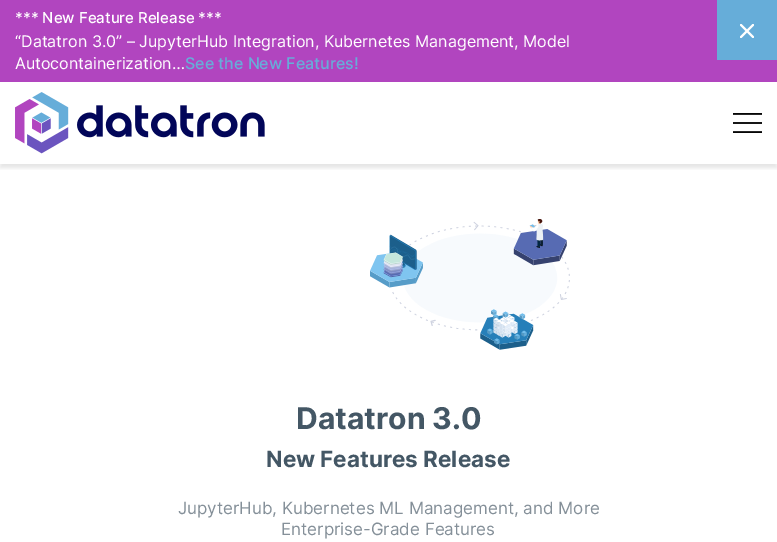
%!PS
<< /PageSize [777 542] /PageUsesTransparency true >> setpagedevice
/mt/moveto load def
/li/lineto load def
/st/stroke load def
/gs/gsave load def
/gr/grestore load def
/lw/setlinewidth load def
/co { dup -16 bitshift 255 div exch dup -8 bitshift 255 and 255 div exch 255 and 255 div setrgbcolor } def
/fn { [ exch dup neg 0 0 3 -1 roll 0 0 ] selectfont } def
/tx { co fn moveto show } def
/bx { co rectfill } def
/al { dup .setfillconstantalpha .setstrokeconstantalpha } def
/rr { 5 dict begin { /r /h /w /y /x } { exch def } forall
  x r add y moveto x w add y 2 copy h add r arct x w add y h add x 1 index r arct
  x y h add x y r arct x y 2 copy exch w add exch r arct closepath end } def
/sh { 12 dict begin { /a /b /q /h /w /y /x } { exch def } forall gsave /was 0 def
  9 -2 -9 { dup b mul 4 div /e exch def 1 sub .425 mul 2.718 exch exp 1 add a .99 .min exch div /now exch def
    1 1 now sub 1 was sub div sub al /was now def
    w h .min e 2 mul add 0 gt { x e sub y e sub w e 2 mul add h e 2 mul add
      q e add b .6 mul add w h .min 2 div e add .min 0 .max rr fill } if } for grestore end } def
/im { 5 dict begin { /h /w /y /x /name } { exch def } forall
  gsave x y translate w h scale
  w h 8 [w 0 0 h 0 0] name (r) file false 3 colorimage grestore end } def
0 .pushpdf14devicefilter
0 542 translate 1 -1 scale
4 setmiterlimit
0 0 777 542 16#FFFFFF bx
0 0 777 82 16#B145BF bx
717 0 60 60 16#66ADD9 bx
16#FFFFFF co
2 lw
1 setlinecap
1 setlinejoin
753 25 mt 741 37 li 741 25 mt 753 37 li st
gs
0 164 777 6 rectclip
16#000000 co
0 86 777 82 0 2 .1 sh
gr
(media/1.raw) 15 92 250 62 im
(media/2.raw) 733 113 29 20 im
(media/3.raw) 370 219 200 131 im
(*** New Feature Release ***) 15 23 /Inter-Medium 15 16#FFFFFF tx
(“Datatron 3.0” – JupyterHub Integration, Kubernetes Management, Model) 15 47 /Inter-Regular 16 16#FFFFFF tx
(Autocontainerization…) 15 69 /Inter-Regular 16 16#FFFFFF tx
(See the New Features!) 185 69 /Inter-Medium 16 16#66ADD9 tx
(Datatron 3.0) 296 429 /Inter-Bold 30 16#445765 tx
(New Features Release) 266 467 /Inter-Bold 22.5 16#445765 tx
(JupyterHub, Kubernetes ML Management, and More) 178 514 /Inter-Regular 17 16#859099 tx
(Enterprise-Grade Features) 281 535 /Inter-Regular 17 16#859099 tx
.poppdf14devicefilter showpage
